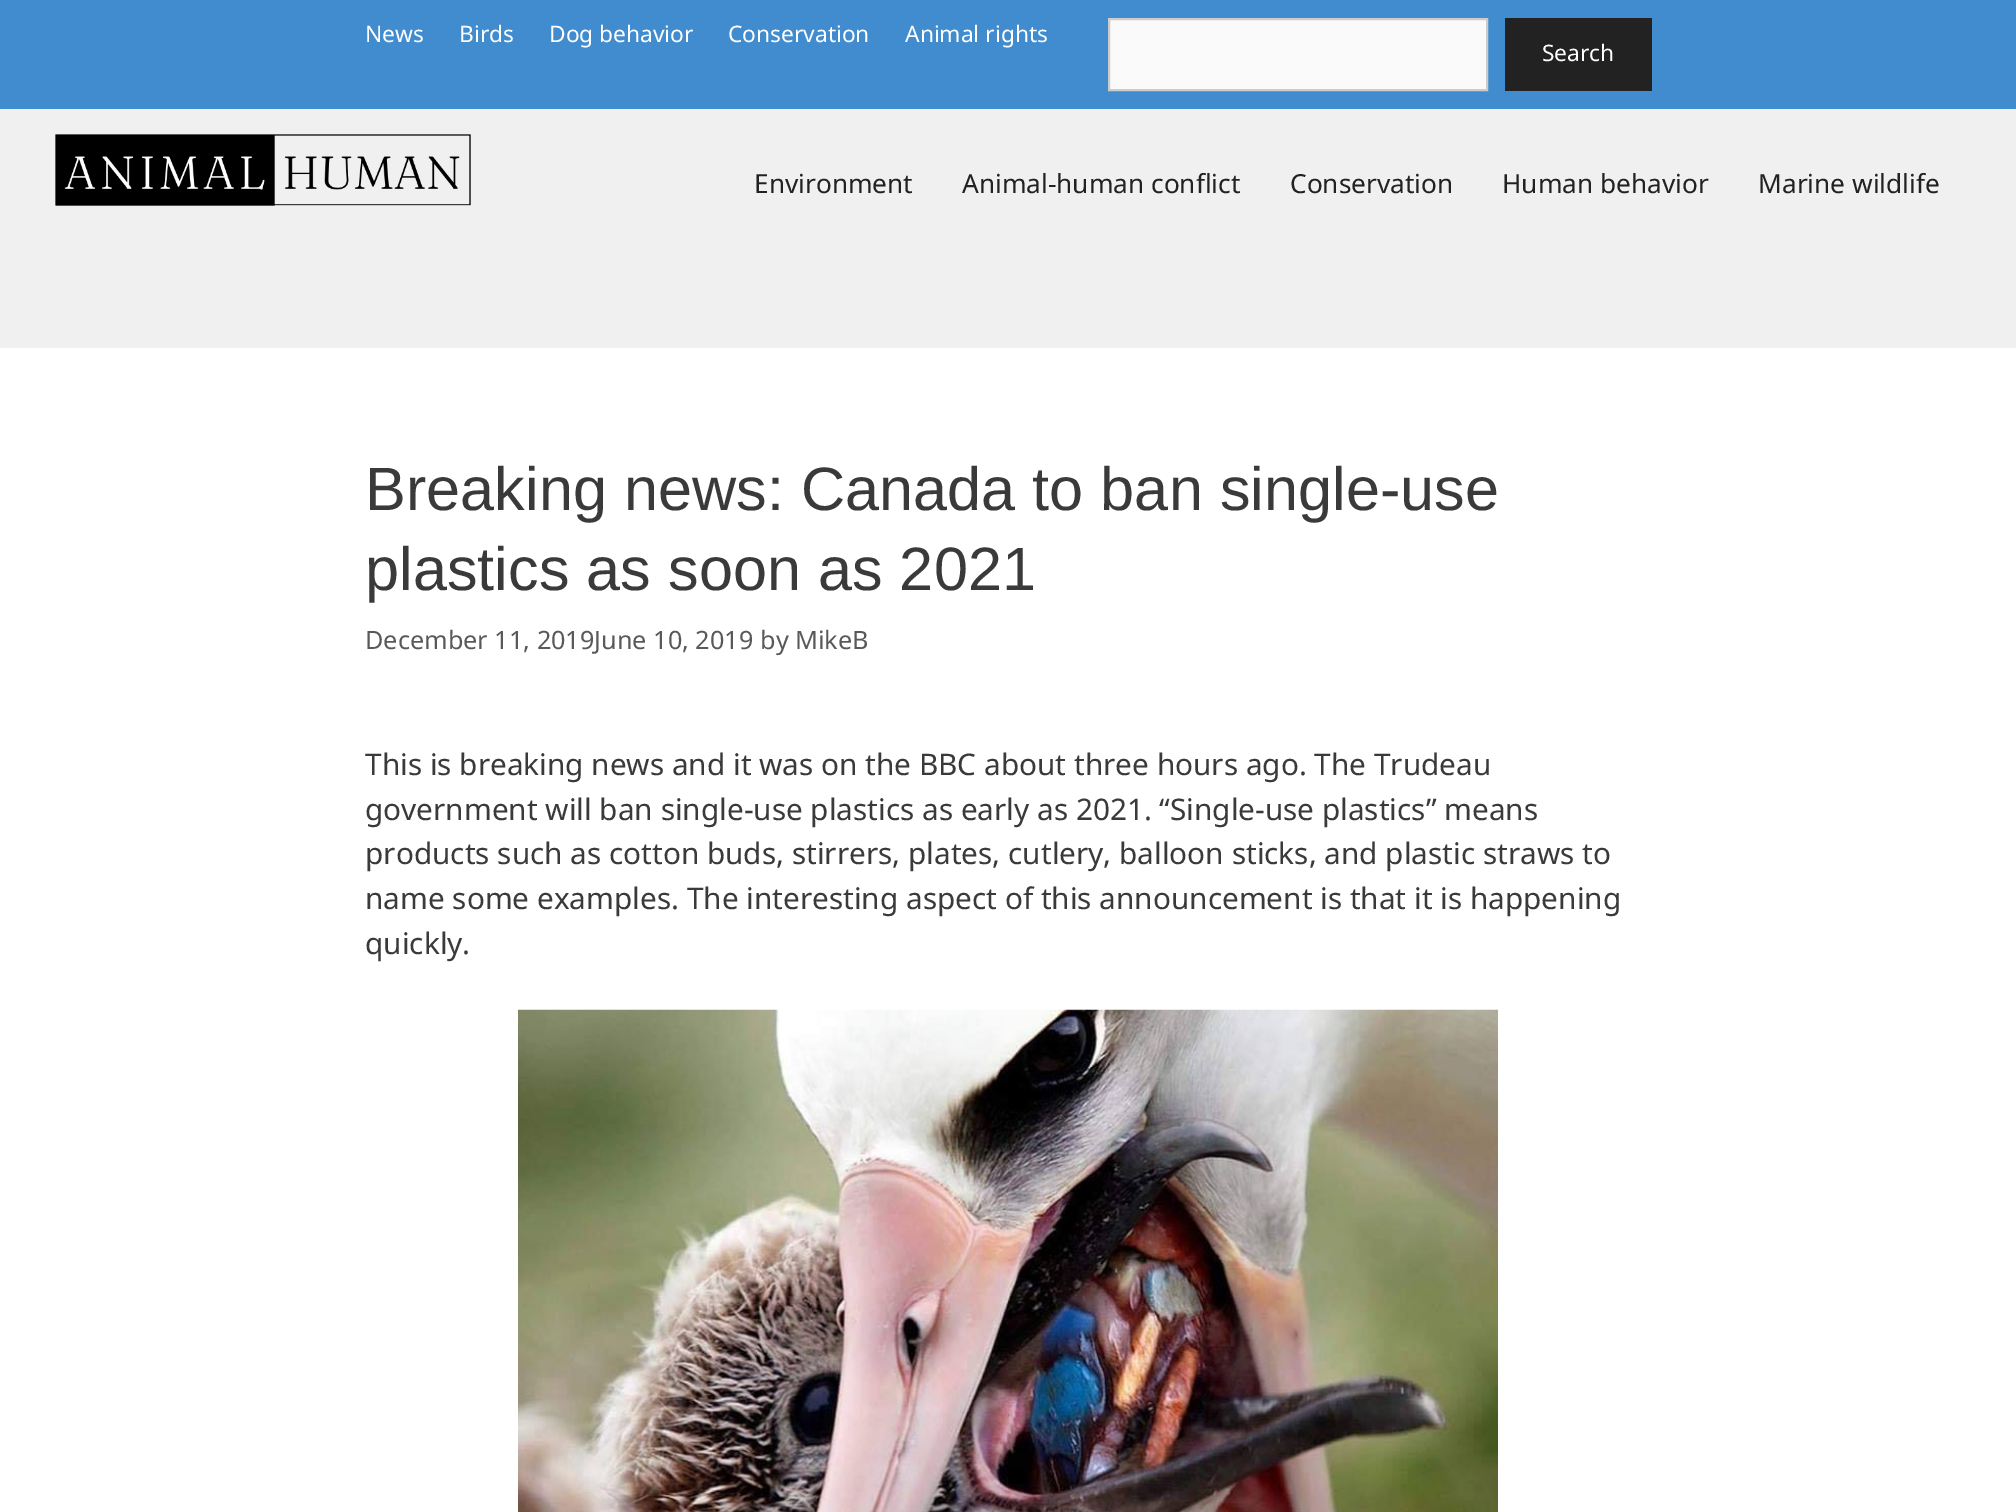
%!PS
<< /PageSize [2016 1512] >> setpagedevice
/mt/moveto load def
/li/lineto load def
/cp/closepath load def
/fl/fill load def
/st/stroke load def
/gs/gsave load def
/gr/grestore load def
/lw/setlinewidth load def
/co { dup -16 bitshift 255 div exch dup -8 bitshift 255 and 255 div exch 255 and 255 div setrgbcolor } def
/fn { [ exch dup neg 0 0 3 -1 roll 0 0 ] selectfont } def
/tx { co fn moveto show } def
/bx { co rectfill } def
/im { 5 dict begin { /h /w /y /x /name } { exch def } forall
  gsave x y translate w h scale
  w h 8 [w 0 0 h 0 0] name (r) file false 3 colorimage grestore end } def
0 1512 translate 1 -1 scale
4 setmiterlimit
0 0 2016 1512 16#FFFFFF bx
0 0 2016 109 16#408CCF bx
16#FAFAFA co
1109 19 mt 1487 19 li 1487 90 li 1109 90 li cp gs fl gr
16#CCCCCC co
2 lw
st
1505 18 147 73 16#222222 bx
0 109 2016 239 16#F0F0F0 bx
(media/1.raw) 55 134 416 72 im
(media/2.raw) 518 1009 980 503 im
(News) 365 42 /NotoSans-Regular 22.75 16#FFFFFF tx
(Birds) 459 42 /NotoSans-Regular 22.75 16#FFFFFF tx
(Dog behavior) 549 42 /NotoSans-Regular 22.75 16#FFFFFF tx
(Conservation) 728 42 /NotoSans-Regular 22.75 16#FFFFFF tx
(Animal rights) 905 42 /NotoSans-Regular 22.75 16#FFFFFF tx
(Search) 1542 61 /NotoSans-Regular 22.75 16#FFFFFF tx
(Environment) 754 193 /NotoSans-Regular 26.25 16#222222 tx
(Animal-human conflict) 962 193 /NotoSans-Regular 26.25 16#222222 tx
(Conservation) 1290 193 /NotoSans-Regular 26.25 16#222222 tx
(Human behavior) 1502 193 /NotoSans-Regular 26.25 16#222222 tx
(Marine wildlife) 1758 193 /NotoSans-Regular 26.25 16#222222 tx
(Breaking news: Canada to ban single-use) 365 510 /LiberationSans-Regular 61.25 16#3A3A3A tx
(plastics as soon as 2021) 365 590 /LiberationSans-Regular 61.25 16#3A3A3A tx
(December 11, 2019June 10, 2019) 365 649 /NotoSans-Regular 25.25 16#595959 tx
(by MikeB) 760 649 /NotoSans-Regular 25.25 16#595959 tx
(This is breaking news and it was on the BBC about three hours ago. The Trudeau) 365 775 /NotoSans-Regular 29.75 16#3A3A3A tx
(government will ban single-use plastics as early as 2021. “Single-use plastics” means) 365 820 /NotoSans-Regular 29.75 16#3A3A3A tx
(products such as cotton buds, stirrers, plates, cutlery, balloon sticks, and plastic straws to) 365 864 /NotoSans-Regular 29.75 16#3A3A3A tx
(name some examples. The interesting aspect of this announcement is that it is happening) 365 909 /NotoSans-Regular 29.75 16#3A3A3A tx
(quickly.) 365 954 /NotoSans-Regular 29.75 16#3A3A3A tx
showpage
